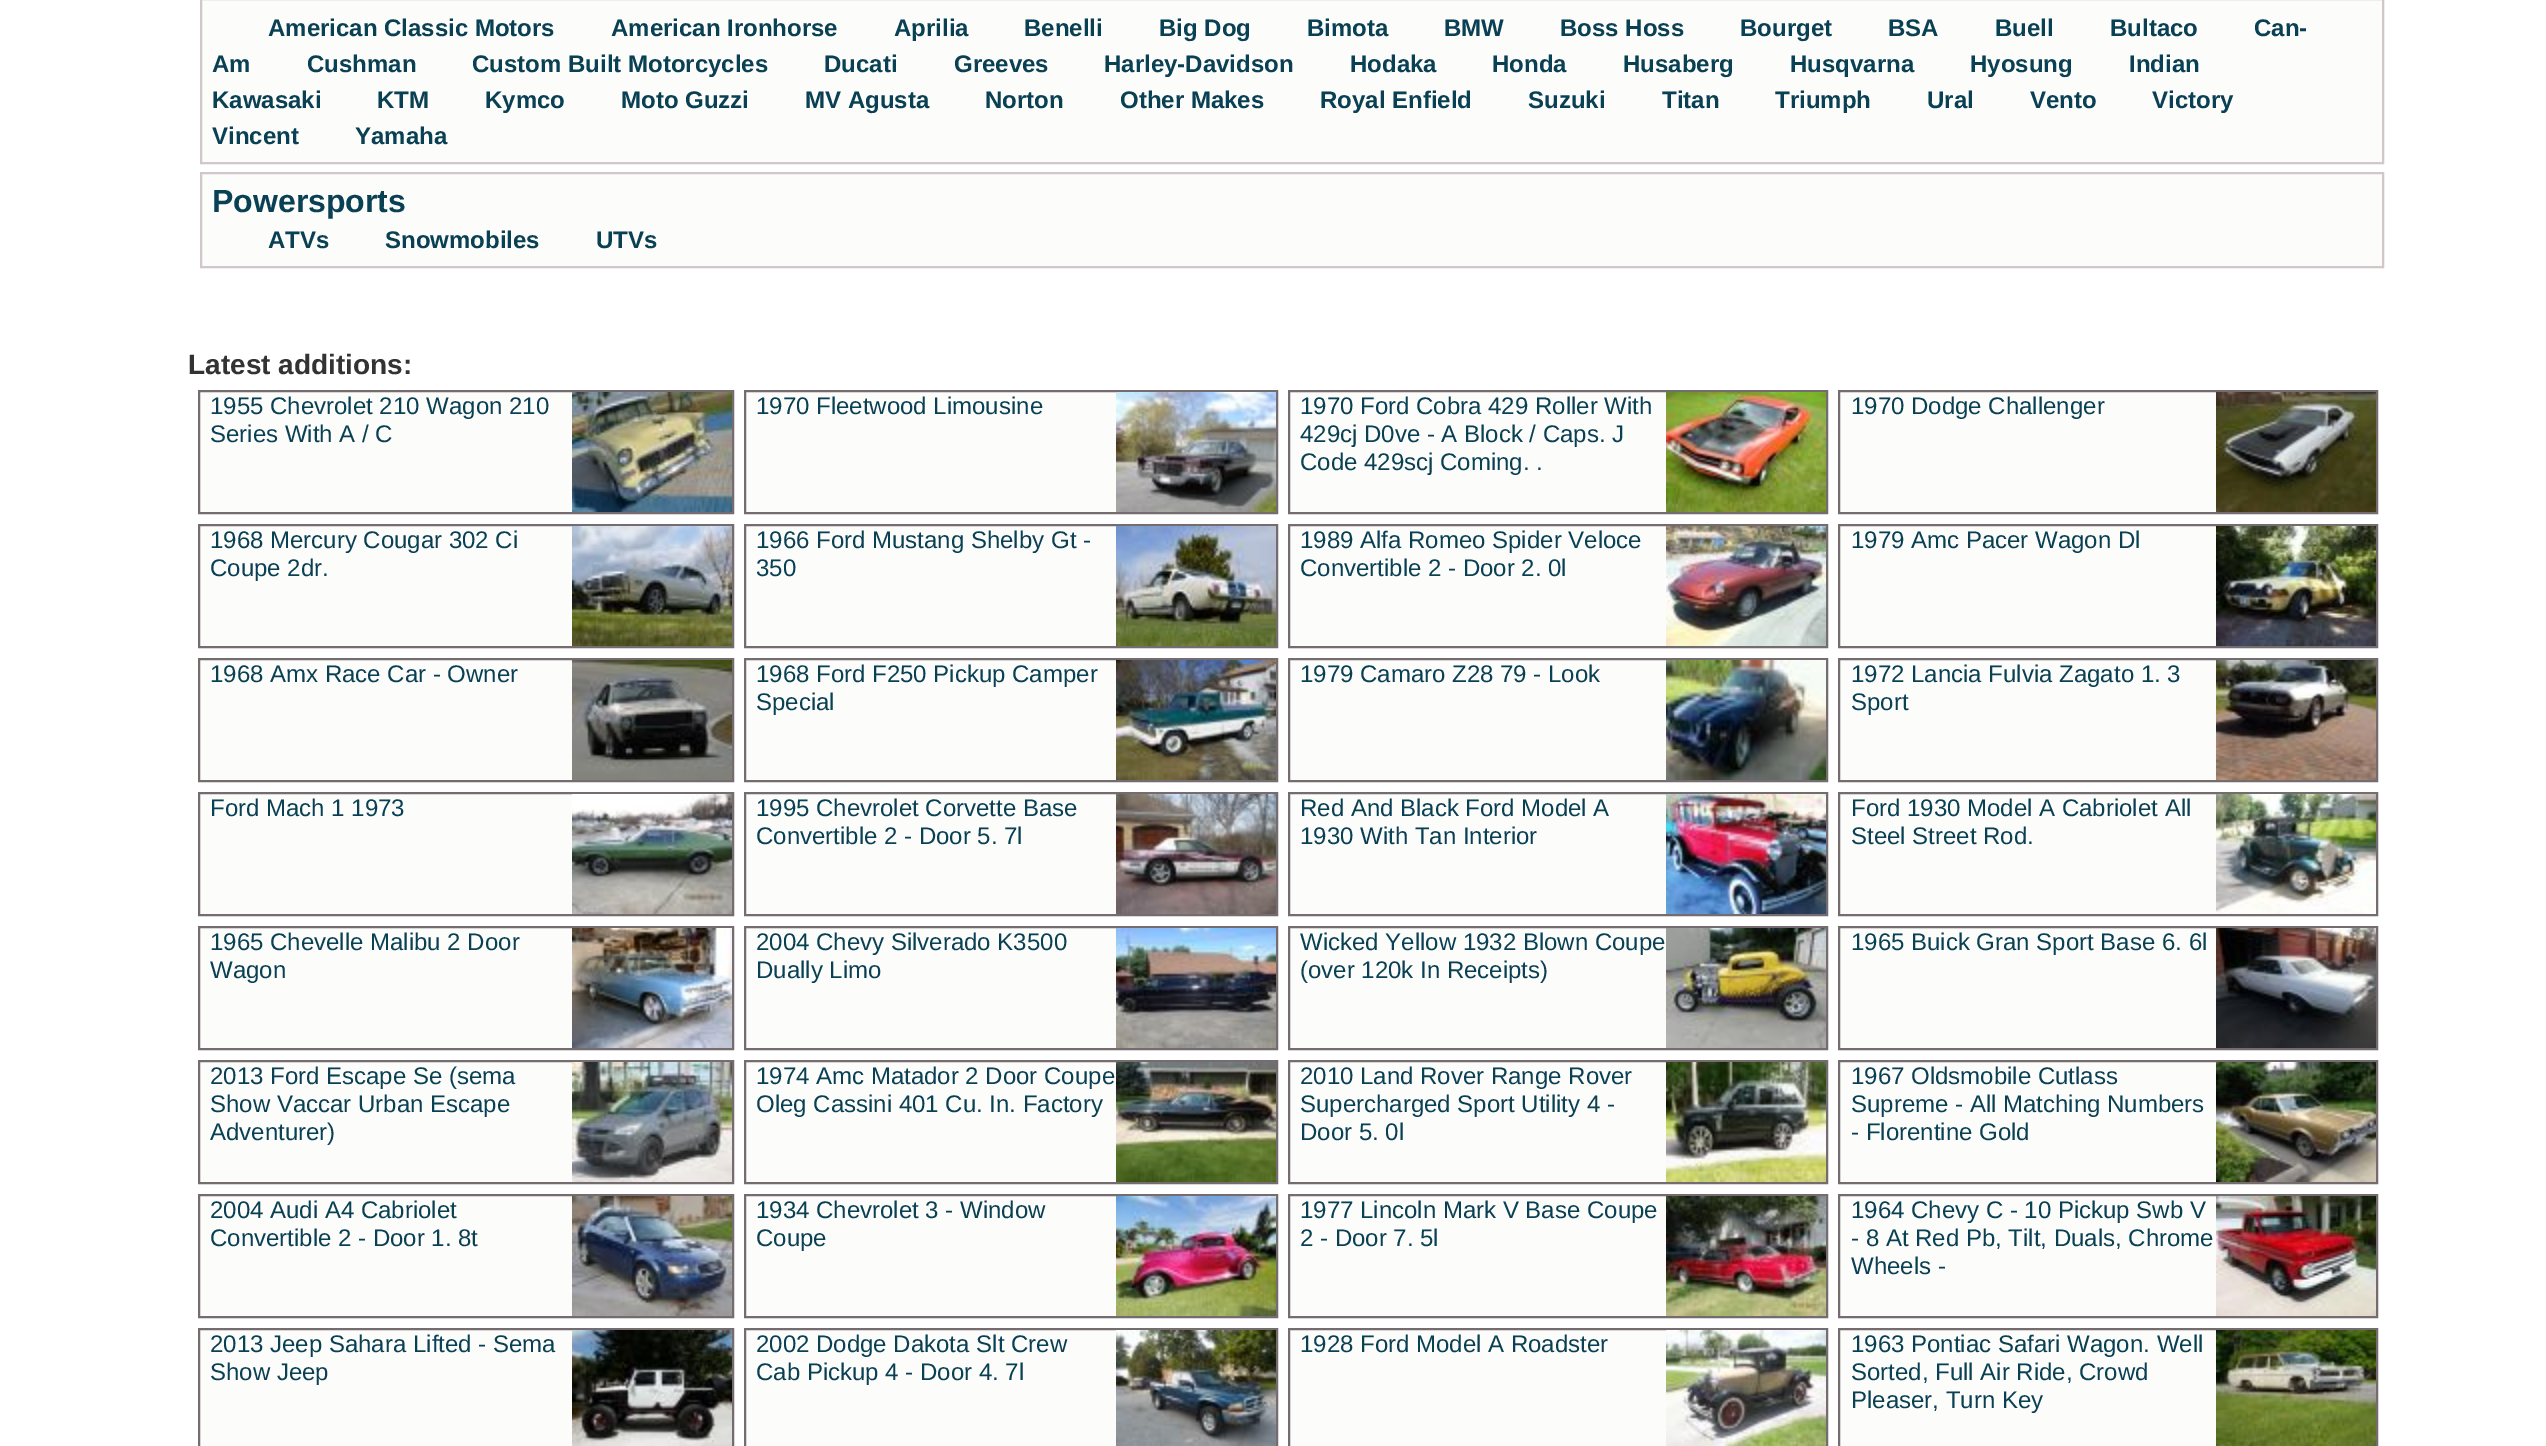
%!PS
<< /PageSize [2546 1446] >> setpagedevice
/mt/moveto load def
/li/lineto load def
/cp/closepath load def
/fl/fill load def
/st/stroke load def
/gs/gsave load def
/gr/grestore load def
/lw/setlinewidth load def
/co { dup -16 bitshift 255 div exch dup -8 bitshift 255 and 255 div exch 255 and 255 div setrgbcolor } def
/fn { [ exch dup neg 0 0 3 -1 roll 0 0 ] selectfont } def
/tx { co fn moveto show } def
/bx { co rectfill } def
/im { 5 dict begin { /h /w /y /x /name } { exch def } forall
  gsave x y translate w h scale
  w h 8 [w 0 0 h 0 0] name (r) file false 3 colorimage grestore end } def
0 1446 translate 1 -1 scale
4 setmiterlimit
0 0 2546 1446 16#FFFFFF bx
16#FCFCFB co
201 -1 mt 2383 -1 li 2383 163 li 201 163 li cp gs fl gr
16#D1C6C9 co
2 lw
st
16#FCFCFB co
201 173 mt 2383 173 li 2383 267 li 201 267 li cp gs fl gr
16#D1C6C9 co
st
200 392 372 120 16#FCFCFB bx
16#746C6E co
199 391 534 122 rectstroke
(media/1.raw) 572 392 160 120 im
746 392 370 120 16#FCFCFB bx
16#746C6E co
745 391 532 122 rectstroke
(media/2.raw) 1116 392 160 120 im
1290 392 376 120 16#FCFCFB bx
16#746C6E co
1289 391 538 122 rectstroke
(media/3.raw) 1666 392 160 120 im
1840 392 376 120 16#FCFCFB bx
16#746C6E co
1839 391 538 122 rectstroke
(media/4.raw) 2216 392 160 120 im
200 526 372 120 16#FCFCFB bx
16#746C6E co
199 525 534 122 rectstroke
(media/5.raw) 572 526 160 120 im
746 526 370 120 16#FCFCFB bx
16#746C6E co
745 525 532 122 rectstroke
(media/6.raw) 1116 526 160 120 im
1290 526 376 120 16#FCFCFB bx
16#746C6E co
1289 525 538 122 rectstroke
(media/7.raw) 1666 526 160 120 im
1840 526 376 120 16#FCFCFB bx
16#746C6E co
1839 525 538 122 rectstroke
(media/8.raw) 2216 526 160 120 im
200 660 372 120 16#FCFCFB bx
16#746C6E co
199 659 534 122 rectstroke
(media/9.raw) 572 660 160 120 im
746 660 370 120 16#FCFCFB bx
16#746C6E co
745 659 532 122 rectstroke
(media/10.raw) 1116 660 160 120 im
1290 660 376 120 16#FCFCFB bx
16#746C6E co
1289 659 538 122 rectstroke
(media/11.raw) 1666 660 160 120 im
1840 660 376 120 16#FCFCFB bx
16#746C6E co
1839 659 538 122 rectstroke
(media/12.raw) 2216 660 160 120 im
200 794 372 120 16#FCFCFB bx
16#746C6E co
199 793 534 122 rectstroke
(media/13.raw) 572 794 160 120 im
746 794 370 120 16#FCFCFB bx
16#746C6E co
745 793 532 122 rectstroke
(media/14.raw) 1116 794 160 120 im
1290 794 376 120 16#FCFCFB bx
16#746C6E co
1289 793 538 122 rectstroke
(media/15.raw) 1666 794 160 120 im
1840 794 376 120 16#FCFCFB bx
16#746C6E co
1839 793 538 122 rectstroke
(media/16.raw) 2216 794 160 120 im
200 928 372 120 16#FCFCFB bx
16#746C6E co
199 927 534 122 rectstroke
(media/17.raw) 572 928 160 120 im
746 928 370 120 16#FCFCFB bx
16#746C6E co
745 927 532 122 rectstroke
(media/18.raw) 1116 928 160 120 im
1290 928 376 120 16#FCFCFB bx
16#746C6E co
1289 927 538 122 rectstroke
(media/19.raw) 1666 928 160 120 im
1840 928 376 120 16#FCFCFB bx
16#746C6E co
1839 927 538 122 rectstroke
(media/20.raw) 2216 928 160 120 im
200 1062 372 120 16#FCFCFB bx
16#746C6E co
199 1061 534 122 rectstroke
(media/21.raw) 572 1062 160 120 im
746 1062 370 120 16#FCFCFB bx
16#746C6E co
745 1061 532 122 rectstroke
(media/22.raw) 1116 1062 160 120 im
1290 1062 376 120 16#FCFCFB bx
16#746C6E co
1289 1061 538 122 rectstroke
(media/23.raw) 1666 1062 160 120 im
1840 1062 376 120 16#FCFCFB bx
16#746C6E co
1839 1061 538 122 rectstroke
(media/24.raw) 2216 1062 160 120 im
200 1196 372 120 16#FCFCFB bx
16#746C6E co
199 1195 534 122 rectstroke
(media/25.raw) 572 1196 160 120 im
746 1196 370 120 16#FCFCFB bx
16#746C6E co
745 1195 532 122 rectstroke
(media/26.raw) 1116 1196 160 120 im
1290 1196 376 120 16#FCFCFB bx
16#746C6E co
1289 1195 538 122 rectstroke
(media/27.raw) 1666 1196 160 120 im
1840 1196 376 120 16#FCFCFB bx
16#746C6E co
1839 1195 538 122 rectstroke
(media/28.raw) 2216 1196 160 120 im
200 1330 372 116 16#FCFCFB bx
16#746C6E co
199 1329 534 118 rectstroke
(media/29.raw) 572 1330 160 116 im
746 1330 370 116 16#FCFCFB bx
16#746C6E co
745 1329 532 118 rectstroke
(media/30.raw) 1116 1330 160 116 im
1290 1330 376 116 16#FCFCFB bx
16#746C6E co
1289 1329 538 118 rectstroke
(media/31.raw) 1666 1330 160 116 im
1840 1330 376 116 16#FCFCFB bx
16#746C6E co
1839 1329 538 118 rectstroke
(media/32.raw) 2216 1330 160 116 im
(American Classic Motors) 268 36 /LiberationSans-Bold 24 16#094053 tx
(American Ironhorse) 611 36 /LiberationSans-Bold 24 16#094053 tx
(Aprilia) 894 36 /LiberationSans-Bold 24 16#094053 tx
(Benelli) 1024 36 /LiberationSans-Bold 24 16#094053 tx
(Big Dog) 1159 36 /LiberationSans-Bold 24 16#094053 tx
(Bimota) 1307 36 /LiberationSans-Bold 24 16#094053 tx
(BMW) 1444 36 /LiberationSans-Bold 24 16#094053 tx
(Boss Hoss) 1560 36 /LiberationSans-Bold 24 16#094053 tx
(Bourget) 1740 36 /LiberationSans-Bold 24 16#094053 tx
(BSA) 1888 36 /LiberationSans-Bold 24 16#094053 tx
(Buell) 1995 36 /LiberationSans-Bold 24 16#094053 tx
(Bultaco) 2110 36 /LiberationSans-Bold 24 16#094053 tx
(Can-) 2254 36 /LiberationSans-Bold 24 16#094053 tx
(Am) 212 72 /LiberationSans-Bold 24 16#094053 tx
(Cushman) 307 72 /LiberationSans-Bold 24 16#094053 tx
(Custom Built Motorcycles) 472 72 /LiberationSans-Bold 24 16#094053 tx
(Ducati) 824 72 /LiberationSans-Bold 24 16#094053 tx
(Greeves) 954 72 /LiberationSans-Bold 24 16#094053 tx
(Harley-Davidson) 1104 72 /LiberationSans-Bold 24 16#094053 tx
(Hodaka) 1350 72 /LiberationSans-Bold 24 16#094053 tx
(Honda) 1492 72 /LiberationSans-Bold 24 16#094053 tx
(Husaberg) 1623 72 /LiberationSans-Bold 24 16#094053 tx
(Husqvarna) 1790 72 /LiberationSans-Bold 24 16#094053 tx
(Hyosung) 1970 72 /LiberationSans-Bold 24 16#094053 tx
(Indian) 2129 72 /LiberationSans-Bold 24 16#094053 tx
(Kawasaki) 212 108 /LiberationSans-Bold 24 16#094053 tx
(KTM) 377 108 /LiberationSans-Bold 24 16#094053 tx
(Kymco) 485 108 /LiberationSans-Bold 24 16#094053 tx
(Moto Guzzi) 621 108 /LiberationSans-Bold 24 16#094053 tx
(MV Agusta) 805 108 /LiberationSans-Bold 24 16#094053 tx
(Norton) 985 108 /LiberationSans-Bold 24 16#094053 tx
(Other Makes) 1120 108 /LiberationSans-Bold 24 16#094053 tx
(Royal Enfield) 1320 108 /LiberationSans-Bold 24 16#094053 tx
(Suzuki) 1528 108 /LiberationSans-Bold 24 16#094053 tx
(Titan) 1662 108 /LiberationSans-Bold 24 16#094053 tx
(Triumph) 1775 108 /LiberationSans-Bold 24 16#094053 tx
(Ural) 1927 108 /LiberationSans-Bold 24 16#094053 tx
(Vento) 2030 108 /LiberationSans-Bold 24 16#094053 tx
(Victory) 2152 108 /LiberationSans-Bold 24 16#094053 tx
(Vincent) 212 144 /LiberationSans-Bold 24 16#094053 tx
(Yamaha) 355 144 /LiberationSans-Bold 24 16#094053 tx
(Powersports) 212 212 /LiberationSans-Bold 32 16#094053 tx
(ATVs) 268 248 /LiberationSans-Bold 24 16#094053 tx
(Snowmobiles) 385 248 /LiberationSans-Bold 24 16#094053 tx
(UTVs) 596 248 /LiberationSans-Bold 24 16#094053 tx
(Latest additions:) 188 374 /LiberationSans-Bold 28 16#333333 tx
(1955 Chevrolet 210 Wagon 210) 210 414 /LiberationSans-Regular 24 16#094053 tx
(Series With A / C) 210 442 /LiberationSans-Regular 24 16#094053 tx
(1970 Fleetwood Limousine) 756 414 /LiberationSans-Regular 24 16#094053 tx
(1970 Ford Cobra 429 Roller With) 1300 414 /LiberationSans-Regular 24 16#094053 tx
(429cj D0ve - A Block / Caps. J) 1300 442 /LiberationSans-Regular 24 16#094053 tx
(Code 429scj Coming. .) 1300 470 /LiberationSans-Regular 24 16#094053 tx
(1970 Dodge Challenger) 1851 414 /LiberationSans-Regular 24 16#094053 tx
(1968 Mercury Cougar 302 Ci) 210 548 /LiberationSans-Regular 24 16#094053 tx
(Coupe 2dr.) 210 576 /LiberationSans-Regular 24 16#094053 tx
(1966 Ford Mustang Shelby Gt -) 756 548 /LiberationSans-Regular 24 16#094053 tx
(350) 756 576 /LiberationSans-Regular 24 16#094053 tx
(1989 Alfa Romeo Spider Veloce) 1300 548 /LiberationSans-Regular 24 16#094053 tx
(Convertible 2 - Door 2. 0l) 1300 576 /LiberationSans-Regular 24 16#094053 tx
(1979 Amc Pacer Wagon Dl) 1851 548 /LiberationSans-Regular 24 16#094053 tx
(1968 Amx Race Car - Owner) 210 682 /LiberationSans-Regular 24 16#094053 tx
(1968 Ford F250 Pickup Camper) 756 682 /LiberationSans-Regular 24 16#094053 tx
(Special) 756 710 /LiberationSans-Regular 24 16#094053 tx
(1979 Camaro Z28 79 - Look) 1300 682 /LiberationSans-Regular 24 16#094053 tx
(1972 Lancia Fulvia Zagato 1. 3) 1851 682 /LiberationSans-Regular 24 16#094053 tx
(Sport) 1851 710 /LiberationSans-Regular 24 16#094053 tx
(Ford Mach 1 1973) 210 816 /LiberationSans-Regular 24 16#094053 tx
(1995 Chevrolet Corvette Base) 756 816 /LiberationSans-Regular 24 16#094053 tx
(Convertible 2 - Door 5. 7l) 756 844 /LiberationSans-Regular 24 16#094053 tx
(Red And Black Ford Model A) 1300 816 /LiberationSans-Regular 24 16#094053 tx
(1930 With Tan Interior) 1300 844 /LiberationSans-Regular 24 16#094053 tx
(Ford 1930 Model A Cabriolet All) 1851 816 /LiberationSans-Regular 24 16#094053 tx
(Steel Street Rod.) 1851 844 /LiberationSans-Regular 24 16#094053 tx
(1965 Chevelle Malibu 2 Door) 210 950 /LiberationSans-Regular 24 16#094053 tx
(Wagon) 210 978 /LiberationSans-Regular 24 16#094053 tx
(2004 Chevy Silverado K3500) 756 950 /LiberationSans-Regular 24 16#094053 tx
(Dually Limo) 756 978 /LiberationSans-Regular 24 16#094053 tx
(Wicked Yellow 1932 Blown Coupe) 1300 950 /LiberationSans-Regular 24 16#094053 tx
(\(over 120k In Receipts\)) 1300 978 /LiberationSans-Regular 24 16#094053 tx
(1965 Buick Gran Sport Base 6. 6l) 1851 950 /LiberationSans-Regular 24 16#094053 tx
(2013 Ford Escape Se \(sema) 210 1084 /LiberationSans-Regular 24 16#094053 tx
(Show Vaccar Urban Escape) 210 1112 /LiberationSans-Regular 24 16#094053 tx
(Adventurer\)) 210 1140 /LiberationSans-Regular 24 16#094053 tx
(1974 Amc Matador 2 Door Coupe) 756 1084 /LiberationSans-Regular 24 16#094053 tx
(Oleg Cassini 401 Cu. In. Factory) 756 1112 /LiberationSans-Regular 24 16#094053 tx
(2010 Land Rover Range Rover) 1300 1084 /LiberationSans-Regular 24 16#094053 tx
(Supercharged Sport Utility 4 -) 1300 1112 /LiberationSans-Regular 24 16#094053 tx
(Door 5. 0l) 1300 1140 /LiberationSans-Regular 24 16#094053 tx
(1967 Oldsmobile Cutlass) 1851 1084 /LiberationSans-Regular 24 16#094053 tx
(Supreme - All Matching Numbers) 1851 1112 /LiberationSans-Regular 24 16#094053 tx
(- Florentine Gold) 1851 1140 /LiberationSans-Regular 24 16#094053 tx
(2004 Audi A4 Cabriolet) 210 1218 /LiberationSans-Regular 24 16#094053 tx
(Convertible 2 - Door 1. 8t) 210 1246 /LiberationSans-Regular 24 16#094053 tx
(1934 Chevrolet 3 - Window) 756 1218 /LiberationSans-Regular 24 16#094053 tx
(Coupe) 756 1246 /LiberationSans-Regular 24 16#094053 tx
(1977 Lincoln Mark V Base Coupe) 1300 1218 /LiberationSans-Regular 24 16#094053 tx
(2 - Door 7. 5l) 1300 1246 /LiberationSans-Regular 24 16#094053 tx
(1964 Chevy C - 10 Pickup Swb V) 1851 1218 /LiberationSans-Regular 24 16#094053 tx
(- 8 At Red Pb, Tilt, Duals, Chrome) 1851 1246 /LiberationSans-Regular 24 16#094053 tx
(Wheels -) 1851 1274 /LiberationSans-Regular 24 16#094053 tx
(2013 Jeep Sahara Lifted - Sema) 210 1352 /LiberationSans-Regular 24 16#094053 tx
(Show Jeep) 210 1380 /LiberationSans-Regular 24 16#094053 tx
(2002 Dodge Dakota Slt Crew) 756 1352 /LiberationSans-Regular 24 16#094053 tx
(Cab Pickup 4 - Door 4. 7l) 756 1380 /LiberationSans-Regular 24 16#094053 tx
(1928 Ford Model A Roadster) 1300 1352 /LiberationSans-Regular 24 16#094053 tx
(1963 Pontiac Safari Wagon. Well) 1851 1352 /LiberationSans-Regular 24 16#094053 tx
(Sorted, Full Air Ride, Crowd) 1851 1380 /LiberationSans-Regular 24 16#094053 tx
(Pleaser, Turn Key) 1851 1408 /LiberationSans-Regular 24 16#094053 tx
showpage
